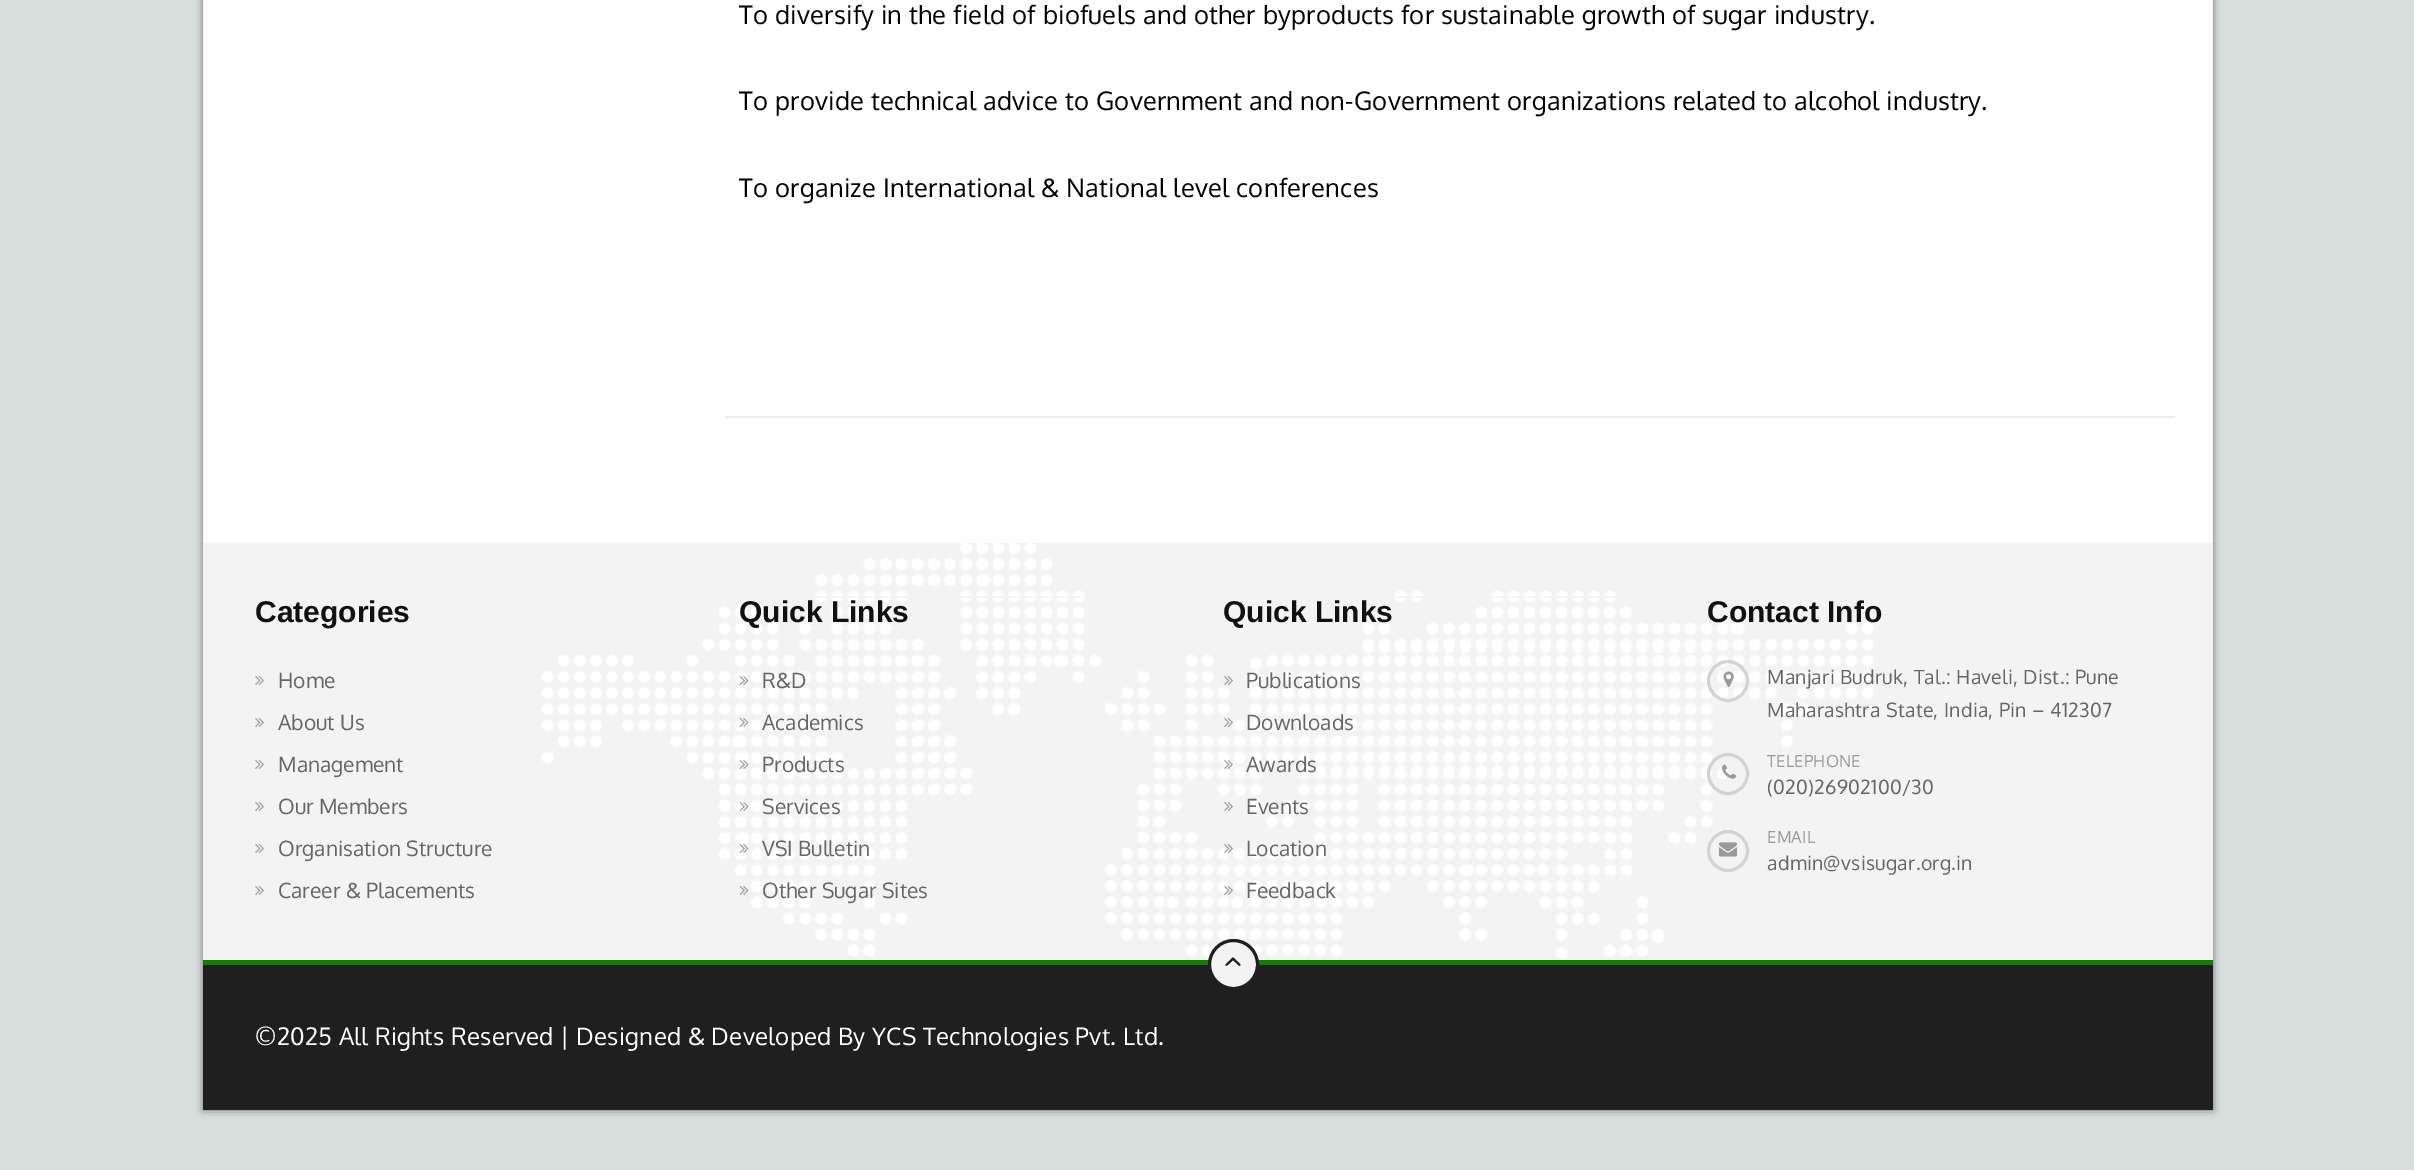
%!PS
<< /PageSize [2414 1170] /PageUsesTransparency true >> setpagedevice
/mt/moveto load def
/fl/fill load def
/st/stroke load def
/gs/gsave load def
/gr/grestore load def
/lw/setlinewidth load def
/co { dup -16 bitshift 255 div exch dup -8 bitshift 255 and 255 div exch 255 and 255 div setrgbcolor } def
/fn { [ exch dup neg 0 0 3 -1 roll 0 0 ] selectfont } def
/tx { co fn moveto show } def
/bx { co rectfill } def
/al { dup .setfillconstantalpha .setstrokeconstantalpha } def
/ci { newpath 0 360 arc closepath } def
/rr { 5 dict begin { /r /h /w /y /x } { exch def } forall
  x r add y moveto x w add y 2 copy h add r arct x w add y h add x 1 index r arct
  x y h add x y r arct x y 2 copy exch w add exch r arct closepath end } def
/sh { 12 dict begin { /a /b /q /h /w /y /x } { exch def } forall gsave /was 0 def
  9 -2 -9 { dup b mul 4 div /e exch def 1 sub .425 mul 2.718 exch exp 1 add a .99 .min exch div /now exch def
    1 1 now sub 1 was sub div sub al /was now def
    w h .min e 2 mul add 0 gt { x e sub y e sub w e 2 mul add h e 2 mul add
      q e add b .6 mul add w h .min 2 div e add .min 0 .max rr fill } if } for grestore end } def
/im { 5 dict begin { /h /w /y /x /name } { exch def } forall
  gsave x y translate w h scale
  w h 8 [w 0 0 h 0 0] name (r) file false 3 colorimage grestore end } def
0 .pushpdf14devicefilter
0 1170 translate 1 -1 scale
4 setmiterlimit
0 0 2414 1170 16#D7DEDC bx
16#000000 co
203 -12 2010 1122 0 4 .5 sh
203 0 2010 543 16#FFFFFF bx
725 416 1450 2 16#EEEEEE bx
203 543 2010 417 16#F3F3F3 bx
(media/1.raw) 541 543 1333 417 im
(media/2.raw) 255 676 9 9 im
(media/2.raw) 255 718 9 9 im
(media/2.raw) 255 760 9 9 im
(media/2.raw) 255 802 9 9 im
(media/2.raw) 255 844 9 9 im
(media/2.raw) 255 886 9 9 im
815 596 270 2 16#F5F5F5 bx
(media/3.raw) 739 676 10 9 im
(media/4.raw) 739 718 10 9 im
(media/5.raw) 739 760 10 9 im
(media/6.raw) 739 802 10 9 im
(media/7.raw) 739 844 10 9 im
(media/8.raw) 739 886 10 9 im
1395 596 221 2 16#F5F5F5 bx
(media/2.raw) 1224 676 9 9 im
(media/9.raw) 1224 718 9 9 im
(media/10.raw) 1224 760 9 9 im
(media/2.raw) 1224 802 9 9 im
(media/11.raw) 1224 844 9 9 im
(media/12.raw) 1224 886 9 9 im
16#D3D3D3 co
3 lw
1728 681 19.5 ci st
(media/13.raw) 1723 671 11 16 im
1728 774 19.5 ci st
(media/14.raw) 1722 764 15 15 im
1728 851 19.5 ci st
(media/15.raw) 1719 842 18 15 im
203 965 2010 145 16#1F1F1F bx
203 960 2010 5 16#147B03 bx
16#F3F3F3 co
1233.5 964.5 24 ci gs fl gr
16#1F1F1F co
st
(media/16.raw) 1225 957 16 9 im
/Oxygen-Regular 25.5 fn
16#000000 co
739 24 mt .3 0 (To diversify in the field of biofuels and other byproducts for sustainable growth of sugar industry.) ashow
739 110 mt .3 0 (To provide technical advice to Government and non-Government organizations related to alcohol industry.) ashow
739 197 mt .3 0 (To organize International & National level conferences) ashow
(Categories) 255 622 /LiberationSans-Bold 30 16#111111 tx
(Home) 278 688 /Oxygen-Regular 21 16#666666 tx
(About Us) 278 730 /Oxygen-Regular 21 16#666666 tx
(Management) 278 772 /Oxygen-Regular 21 16#666666 tx
(Our Members) 278 814 /Oxygen-Regular 21 16#666666 tx
(Organisation Structure) 278 856 /Oxygen-Regular 21 16#666666 tx
(Career & Placements) 278 898 /Oxygen-Regular 21 16#666666 tx
(Quick Links) 739 622 /LiberationSans-Bold 30 16#111111 tx
(R&D) 762 688 /Oxygen-Regular 21 16#666666 tx
(Academics) 762 730 /Oxygen-Regular 21 16#666666 tx
(Products) 762 772 /Oxygen-Regular 21 16#666666 tx
(Services) 762 814 /Oxygen-Regular 21 16#666666 tx
(VSI Bulletin) 762 856 /Oxygen-Regular 21 16#666666 tx
(Other Sugar Sites) 762 898 /Oxygen-Regular 21 16#666666 tx
(Quick Links) 1223 622 /LiberationSans-Bold 30 16#111111 tx
(Publications) 1246 688 /Oxygen-Regular 21 16#666666 tx
(Downloads) 1246 730 /Oxygen-Regular 21 16#666666 tx
(Awards) 1246 772 /Oxygen-Regular 21 16#666666 tx
(Events) 1246 814 /Oxygen-Regular 21 16#666666 tx
(Location) 1246 856 /Oxygen-Regular 21 16#666666 tx
(Feedback) 1246 898 /Oxygen-Regular 21 16#666666 tx
(Contact Info) 1707 622 /LiberationSans-Bold 30 16#111111 tx
/Oxygen-Regular 19.5 fn
16#666666 co
1767 684 mt .3 0 (Manjari Budruk, Tal.: Haveli, Dist.: Pune) ashow
1767 717 mt .3 0 (Maharashtra State, India, Pin – 412307) ashow
/Oxygen-Regular 16.5 fn
16#999999 co
1767 767 mt .3 0 (TELEPHONE) ashow
/Oxygen-Regular 19.5 fn
16#666666 co
1767 794 mt .3 0 (\(020\)26902100/30) ashow
/Oxygen-Regular 16.5 fn
16#999999 co
1767 843 mt .3 0 (EMAIL) ashow
/Oxygen-Regular 19.5 fn
16#666666 co
1767 870 mt .3 0 (admin@vsisugar.org.in) ashow
/Oxygen-Regular 24 fn
16#FFFFFF co
255 1045 mt .3 0 (©2025 All Rights Reserved | Designed & Developed By YCS Technologies Pvt. Ltd.) ashow
.poppdf14devicefilter showpage
